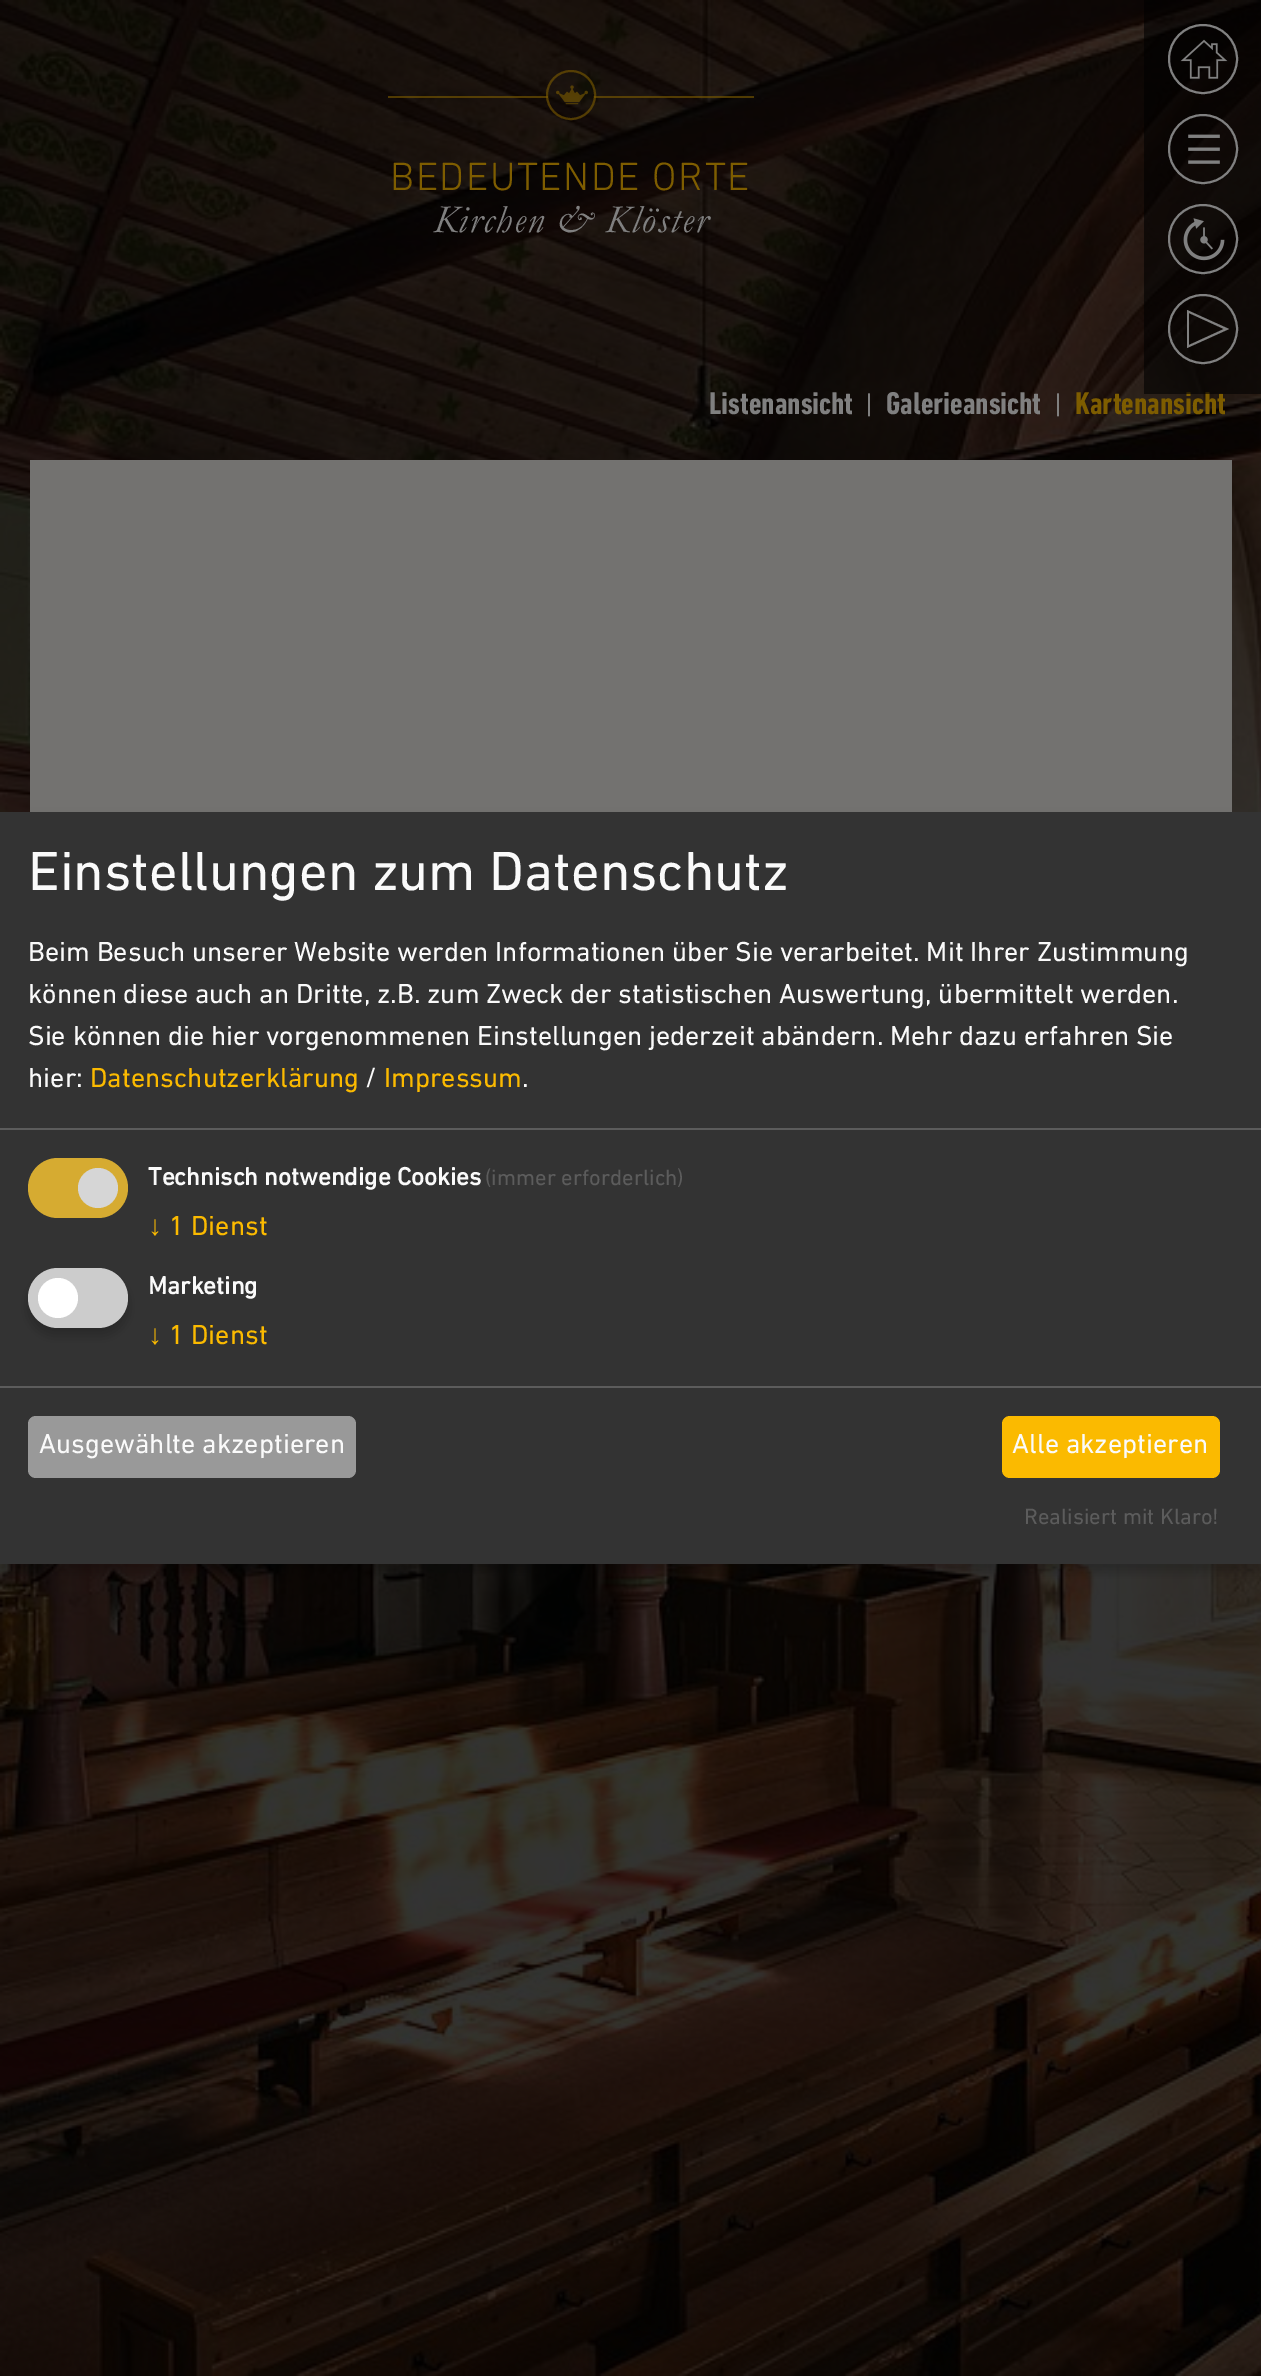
%!PS
<< /PageSize [1261 2376] /PageUsesTransparency true >> setpagedevice
/mt/moveto load def
/li/lineto load def
/cp/closepath load def
/fl/fill load def
/st/stroke load def
/lw/setlinewidth load def
/co { dup -16 bitshift 255 div exch dup -8 bitshift 255 and 255 div exch 255 and 255 div setrgbcolor } def
/fn { [ exch dup neg 0 0 3 -1 roll 0 0 ] selectfont } def
/tx { co fn moveto show } def
/bx { co rectfill } def
/al { dup .setfillconstantalpha .setstrokeconstantalpha } def
/ci { newpath 0 360 arc closepath } def
/rr { 5 dict begin { /r /h /w /y /x } { exch def } forall
  x r add y moveto x w add y 2 copy h add r arct x w add y h add x 1 index r arct
  x y h add x y r arct x y 2 copy exch w add exch r arct closepath end } def
/sh { 12 dict begin { /a /b /q /h /w /y /x } { exch def } forall gsave /was 0 def
  9 -2 -9 { dup b mul 4 div /e exch def 1 sub .425 mul 2.718 exch exp 1 add a .99 .min exch div /now exch def
    1 1 now sub 1 was sub div sub al /was now def
    w h .min e 2 mul add 0 gt { x e sub y e sub w e 2 mul add h e 2 mul add
      q e add b .6 mul add w h .min 2 div e add .min 0 .max rr fill } if } for grestore end } def
/im { 5 dict begin { /h /w /y /x /name } { exch def } forall
  gsave x y translate w h scale
  w h 8 [w 0 0 h 0 0] name (r) file false 3 colorimage grestore end } def
0 .pushpdf14devicefilter
0 2376 translate 1 -1 scale
4 setmiterlimit
0 0 1261 2376 16#FFFFFF bx
(media/1.raw) 0 0 1261 2376 im
0.6 al
16#7E5D00 co
2 lw
571 95 24 ci st
388 96 160 2 16#7E5D00 bx
1 al
(media/5.raw) 556 85 32 20 im
0.6 al
594 96 160 2 16#7E5D00 bx
1 al
30 460 1202 352 16#737270 bx
16#000000 co
0 820 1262 752 0 6 .2 sh
0 812 1261 752 16#333333 bx
0 1128 1261 2 16#5C5C5C bx
16#D6AB31 co
28 1158 100 60 30 rr fl
16#D6D6D6 co
98 1188 20 ci fl
16#000000 co
28 1276 100 60 30 6 .2 sh
16#CCCCCC co
28 1268 100 60 30 rr fl
16#FFFFFF co
58 1298 20 ci fl
0 1386 1261 2 16#5C5C5C bx
16#999999 co
28 1416 328 62 8 rr fl
16#FBBA00 co
1002 1416 218 62 8 rr fl
/DINNext-Light 40 fn
16#7E5D00 co
390 190 mt 1.6 0 (BEDEUTENDE ORTE) ashow
/Garamond-Regular 40 fn
16#808080 co
433 232 mt 1.6 0 (Kirchen & Klöster) ashow
(Listenansicht) 709 414 /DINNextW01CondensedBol-Bold 32 16#808080 tx
(|) 865 414 /DINNext-Regular 28 16#808080 tx
(Galerieansicht) 886 414 /DINNextW01CondensedBol-Bold 32 16#808080 tx
(|) 1054 414 /DINNext-Regular 28 16#808080 tx
(Kartenansicht) 1075 414 /DINNextW01CondensedBol-Bold 32 16#7E5D00 tx
0.6 al
1144 0 117 394 16#000000 bx
1 al
16#808080 co
1203 329 34 ci st
1187 348 mt 1187 310 li 1229 329 li cp 1189 313 mt 1189 345 li 1224 329 li cp fl
1203 239 34 ci st
(media/4.raw) 1183 218 42 43 im
1203 149 34 ci st
(media/3.raw) 1188 134 32 30 im
1203 59 34 ci st
(media/2.raw) 1180 39 48 40 im
(Einstellungen zum Datenschutz) 28 890 /DINNext-Regular 56 16#FAFAFA tx
(Beim Besuch unserer Website werden Informationen über Sie verarbeitet. Mit Ihrer Zustimmung) 28 961 /DINNext-Regular 28 16#FAFAFA tx
(können diese auch an Dritte, z.B. zum Zweck der statistischen Auswertung, übermittelt werden.) 28 1003 /DINNext-Regular 28 16#FAFAFA tx
(Sie können die hier vorgenommenen Einstellungen jederzeit abändern. Mehr dazu erfahren Sie) 28 1045 /DINNext-Regular 28 16#FAFAFA tx
(hier:) 28 1087 /DINNext-Regular 28 16#FAFAFA tx
(Datenschutzerklärung) 90 1087 /DINNext-Regular 28 16#FBBA00 tx
(/) 365 1087 /DINNext-Regular 28 16#FAFAFA tx
(Impressum) 384 1087 /DINNext-Regular 28 16#FBBA00 tx
(.) 522 1087 /DINNext-Regular 28 16#FAFAFA tx
(Technisch notwendige Cookies) 148 1185 /DINNext-Bold 25.25 16#FAFAFA tx
(\(immer erforderlich\)) 485 1185 /DINNext-Regular 22.5 16#5C5C5C tx
(↓) 148 1235 /LiberationSans-Regular 28 16#FBBA00 tx
(1 Dienst) 169 1235 /DINNext-Regular 28 16#FBBA00 tx
(Marketing) 148 1294 /DINNext-Bold 25.25 16#FAFAFA tx
(↓) 148 1344 /LiberationSans-Regular 28 16#FBBA00 tx
(1 Dienst) 169 1344 /DINNext-Regular 28 16#FBBA00 tx
(Ausgewählte akzeptieren) 39 1453 /DINNext-Regular 28 16#FAFAFA tx
(Alle akzeptieren) 1012 1453 /DINNext-Regular 28 16#FAFAFA tx
(Realisiert mit Klaro!) 1024 1524 /DINNext-Regular 22.5 16#5C5C5C tx
.poppdf14devicefilter showpage
